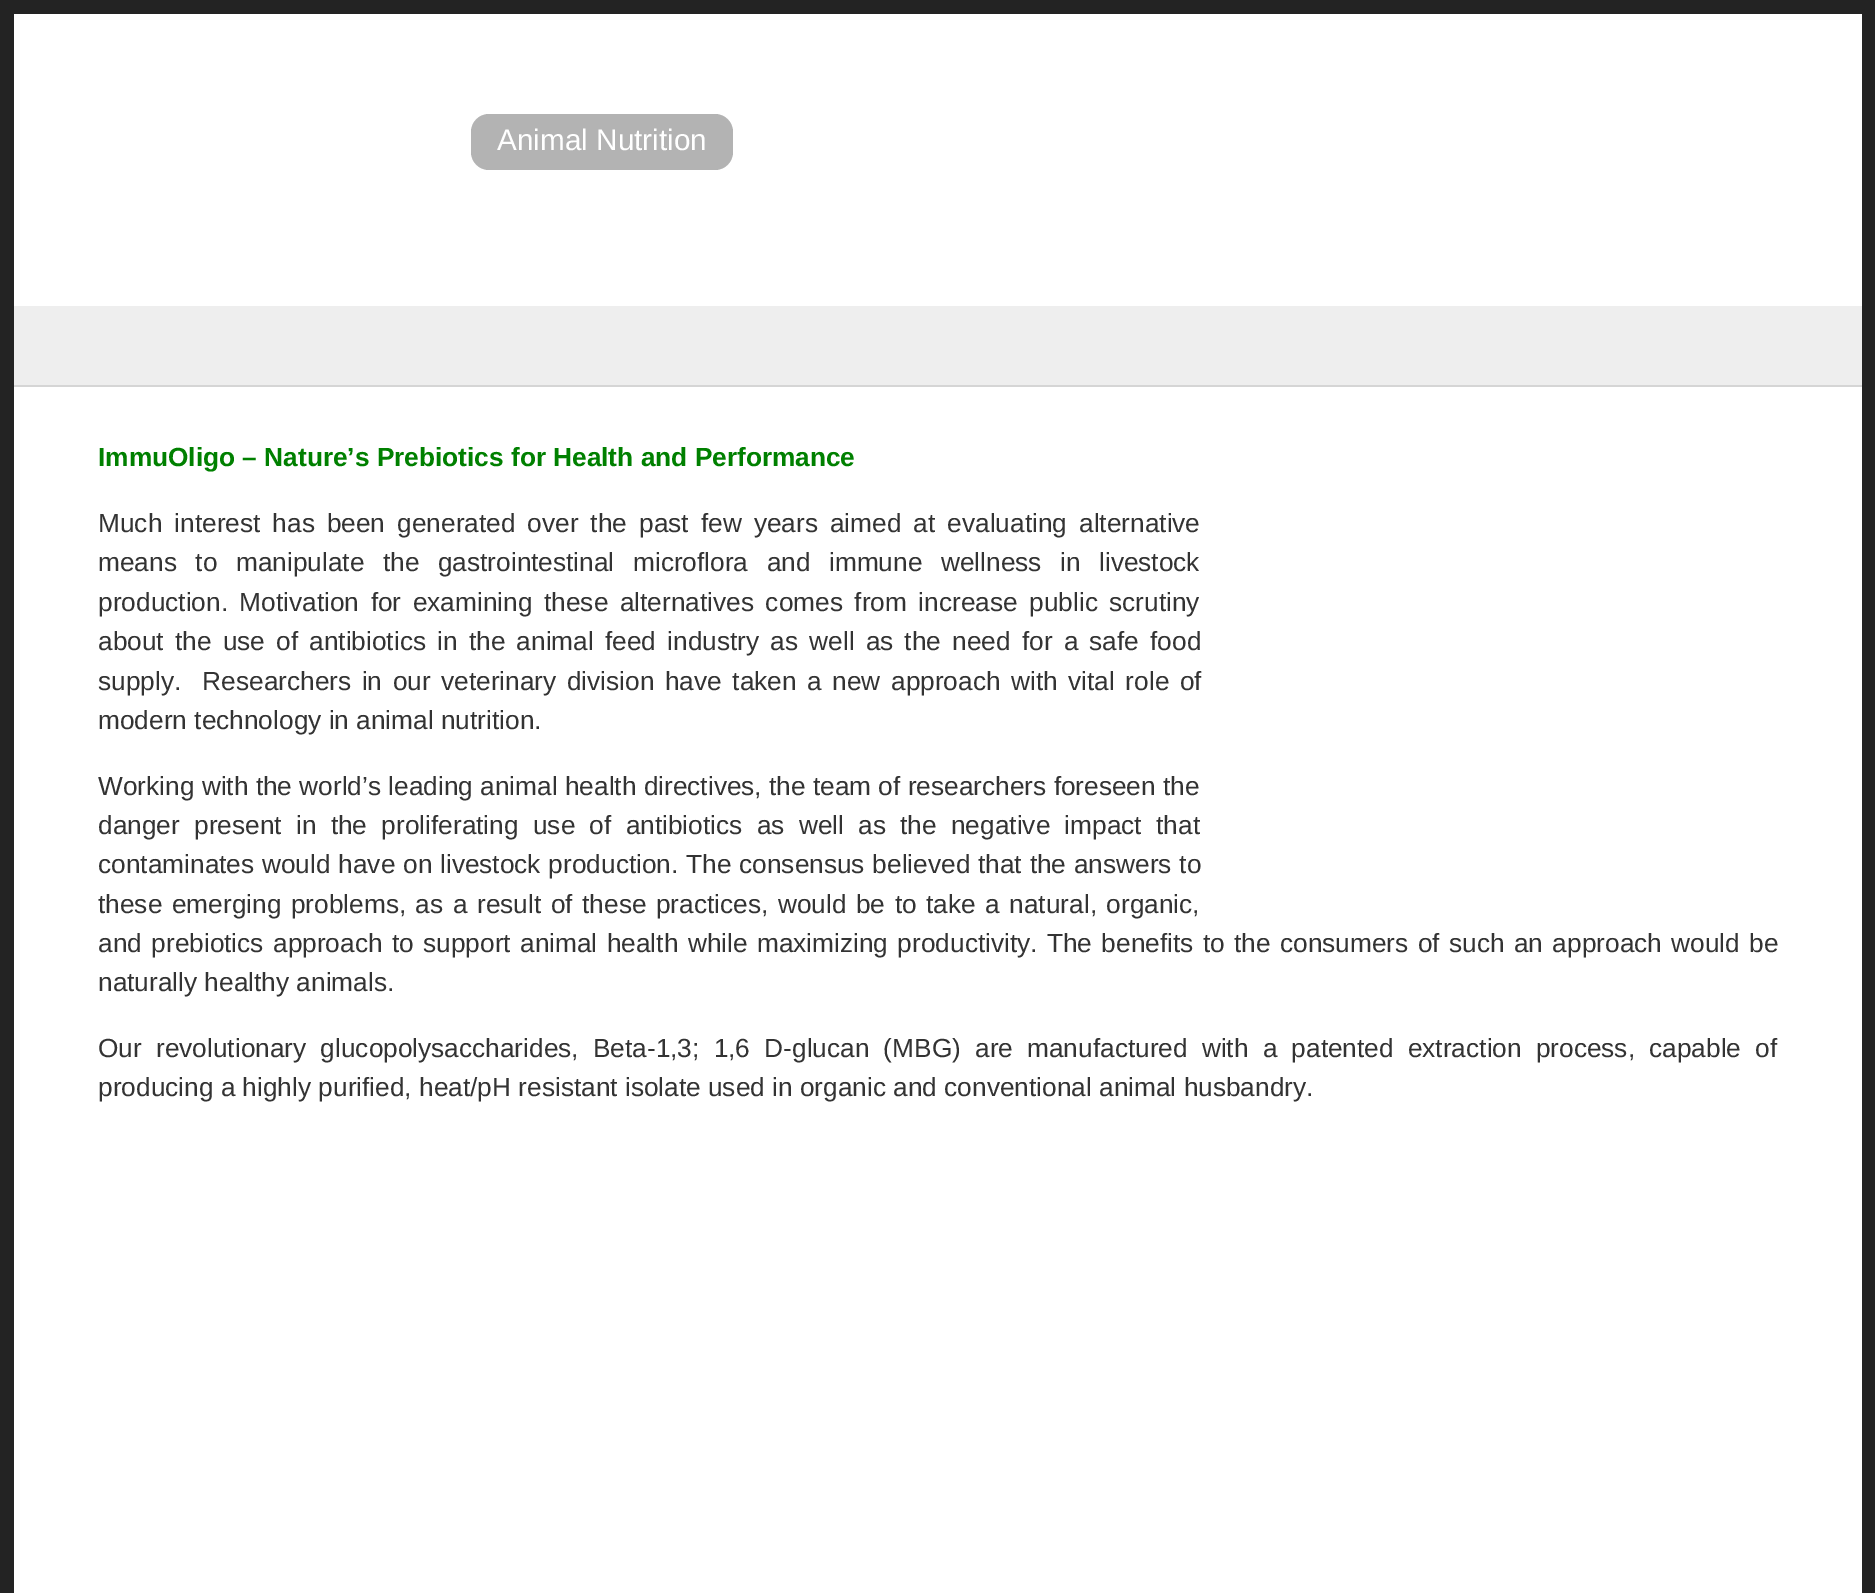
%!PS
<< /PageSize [1875 1593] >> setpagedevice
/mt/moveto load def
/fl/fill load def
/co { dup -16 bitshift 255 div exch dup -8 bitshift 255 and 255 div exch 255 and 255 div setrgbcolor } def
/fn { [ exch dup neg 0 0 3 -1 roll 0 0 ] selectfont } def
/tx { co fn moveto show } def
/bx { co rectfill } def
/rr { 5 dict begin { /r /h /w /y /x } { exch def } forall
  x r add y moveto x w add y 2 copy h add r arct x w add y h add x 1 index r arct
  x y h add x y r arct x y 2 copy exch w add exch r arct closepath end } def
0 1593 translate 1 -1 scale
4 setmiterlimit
0 0 1875 1593 16#232323 bx
14 14 1848 1579 16#FFFFFF bx
16#B3B3B3 co
471 114 262 56 18 rr fl
14 306 1848 79 16#EEEEEE bx
14 385 1848 2 16#D5D5D5 bx
(Animal Nutrition) 497 150 /LiberationSans-Regular 29.75 16#FFFFFF tx
(ImmuOligo – Nature’s Prebiotics for Health and Performance) 98 466 /LiberationSans-Bold 26.25 16#008000 tx
/LiberationSans-Regular 26.25 fn
16#333333 co
98 532 mt 4.75 0 32 (Much interest has been generated over the past few years aimed at evaluating alternative) widthshow
98 571 mt 11.25 0 32 (means to manipulate the gastrointestinal microflora and immune wellness in livestock) widthshow
98 611 mt 4.25 0 32 (production. Motivation for examining these alternatives comes from increase public scrutiny) widthshow
98 650 mt 3.9 0 32 (about the use of antibiotics in the animal feed industry as well as the need for a safe food) widthshow
98 690 mt 3.25 0 32 (supply.  Researchers in our veterinary division have taken a new approach with vital role of) widthshow
(modern technology in animal nutrition.) 98 729 /LiberationSans-Regular 26.25 16#333333 tx
(Working with the world’s leading animal health directives, the team of researchers foreseen the) 98 795 /LiberationSans-Regular 26.25 16#333333 tx
98 834 mt 7 0 32 (danger present in the proliferating use of antibiotics as well as the negative impact that) widthshow
98 873 mt .5 0 32 (contaminates would have on livestock production. The consensus believed that the answers to) widthshow
98 913 mt 2.25 0 32 (these emerging problems, as a result of these practices, would be to take a natural, organic,) widthshow
98 952 mt 2.1 0 32 (and prebiotics approach to support animal health while maximizing productivity. The benefits to the consumers of such an approach would be) widthshow
(naturally healthy animals.) 98 991 /LiberationSans-Regular 26.25 16#333333 tx
98 1057 mt 6.9 0 32 (Our revolutionary glucopolysaccharides, Beta-1,3; 1,6 D-glucan \(MBG\) are manufactured with a patented extraction process, capable of) widthshow
(producing a highly purified, heat/pH resistant isolate used in organic and conventional animal husbandry.) 98 1096 /LiberationSans-Regular 26.25 16#333333 tx
showpage
